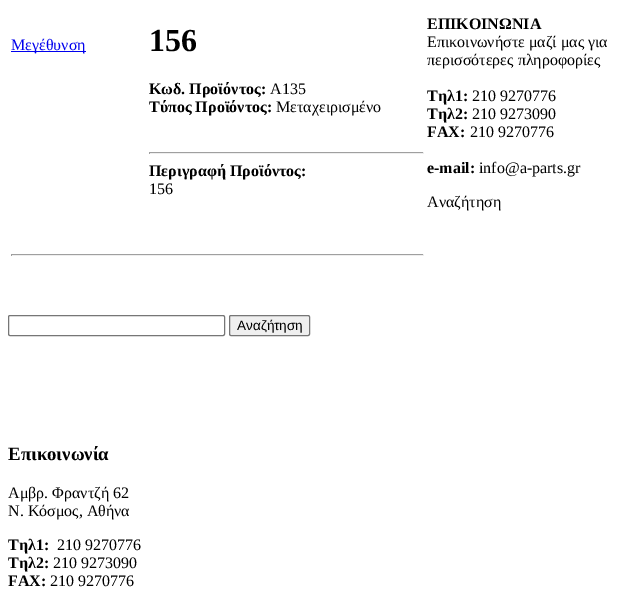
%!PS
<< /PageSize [642 603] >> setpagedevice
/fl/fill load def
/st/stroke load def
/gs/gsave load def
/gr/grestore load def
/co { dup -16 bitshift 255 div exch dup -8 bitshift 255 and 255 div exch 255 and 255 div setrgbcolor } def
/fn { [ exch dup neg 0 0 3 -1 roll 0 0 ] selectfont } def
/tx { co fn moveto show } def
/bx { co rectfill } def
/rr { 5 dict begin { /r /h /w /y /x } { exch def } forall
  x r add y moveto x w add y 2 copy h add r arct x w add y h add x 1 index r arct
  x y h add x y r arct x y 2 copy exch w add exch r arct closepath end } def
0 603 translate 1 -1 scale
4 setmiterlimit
0 0 642 603 16#FFFFFF bx
11 51 75 1 16#0000EE bx
149 152 275 1 16#9F9F9F bx
423 152 1 2 16#EEEEEE bx
149 153 275 1 16#EEEEEE bx
149 152 1 2 16#9F9F9F bx
11 254 413 1 16#9F9F9F bx
423 254 1 2 16#EEEEEE bx
11 255 413 1 16#EEEEEE bx
11 254 1 2 16#9F9F9F bx
16#767676 co
8.5 315.5 216 20 1.5 rr st
16#EFEFEF co
229.5 315.5 80 20 1.5 rr gs fl gr
16#767676 co
st
(Μεγέθυνση) 11 50 /LiberationSerif-Regular 16 16#0000EE tx
(156) 149 51 /LiberationSerif-Bold 32 16#000000 tx
(Κωδ. Προϊόντος:) 149 94 /LiberationSerif-Bold 16 16#000000 tx
(A135) 270 94 /LiberationSerif-Regular 16 16#000000 tx
(Τύπος Προϊόντος:) 149 112 /LiberationSerif-Bold 16 16#000000 tx
(Μεταχειρισμένο) 276 112 /LiberationSerif-Regular 16 16#000000 tx
(Περιγραφή Προϊόντος:) 149 176 /LiberationSerif-Bold 16 16#000000 tx
(156) 149 194 /LiberationSerif-Regular 16 16#000000 tx
(ΕΠΙΚΟΙΝΩΝΙΑ) 427 29 /LiberationSerif-Bold 16 16#000000 tx
(Επικοινωνήστε μαζί μας για) 427 47 /LiberationSerif-Regular 16 16#000000 tx
(περισσότερες πληροφορίες) 427 65 /LiberationSerif-Regular 16 16#000000 tx
(Τηλ1:) 427 101 /LiberationSerif-Bold 16 16#000000 tx
(210 9270776) 472 101 /LiberationSerif-Regular 16 16#000000 tx
(Τηλ2:) 427 119 /LiberationSerif-Bold 16 16#000000 tx
(210 9273090) 472 119 /LiberationSerif-Regular 16 16#000000 tx
(FAX:) 427 137 /LiberationSerif-Bold 16 16#000000 tx
(210 9270776) 470 137 /LiberationSerif-Regular 16 16#000000 tx
(e-mail:) 427 173 /LiberationSerif-Bold 16 16#000000 tx
(info@a-parts.gr) 479 173 /LiberationSerif-Regular 16 16#000000 tx
(Αναζήτηση) 427 207 /LiberationSerif-Regular 16 16#000000 tx
(Αναζήτηση) 237 330 /LiberationSans-Regular 13.5 16#000000 tx
(Επικοινωνία) 8 460 /LiberationSerif-Bold 18.75 16#000000 tx
(Αμβρ. Φραντζή 62) 8 498 /LiberationSerif-Regular 16 16#000000 tx
(Ν. Κόσμος, Αθήνα) 8 516 /LiberationSerif-Regular 16 16#000000 tx
(Τηλ1:) 8 550 /LiberationSerif-Bold 16 16#000000 tx
(210 9270776) 57 550 /LiberationSerif-Regular 16 16#000000 tx
(Τηλ2:) 8 568 /LiberationSerif-Bold 16 16#000000 tx
(210 9273090) 53 568 /LiberationSerif-Regular 16 16#000000 tx
(FAX:) 8 586 /LiberationSerif-Bold 16 16#000000 tx
(210 9270776) 50 586 /LiberationSerif-Regular 16 16#000000 tx
showpage
